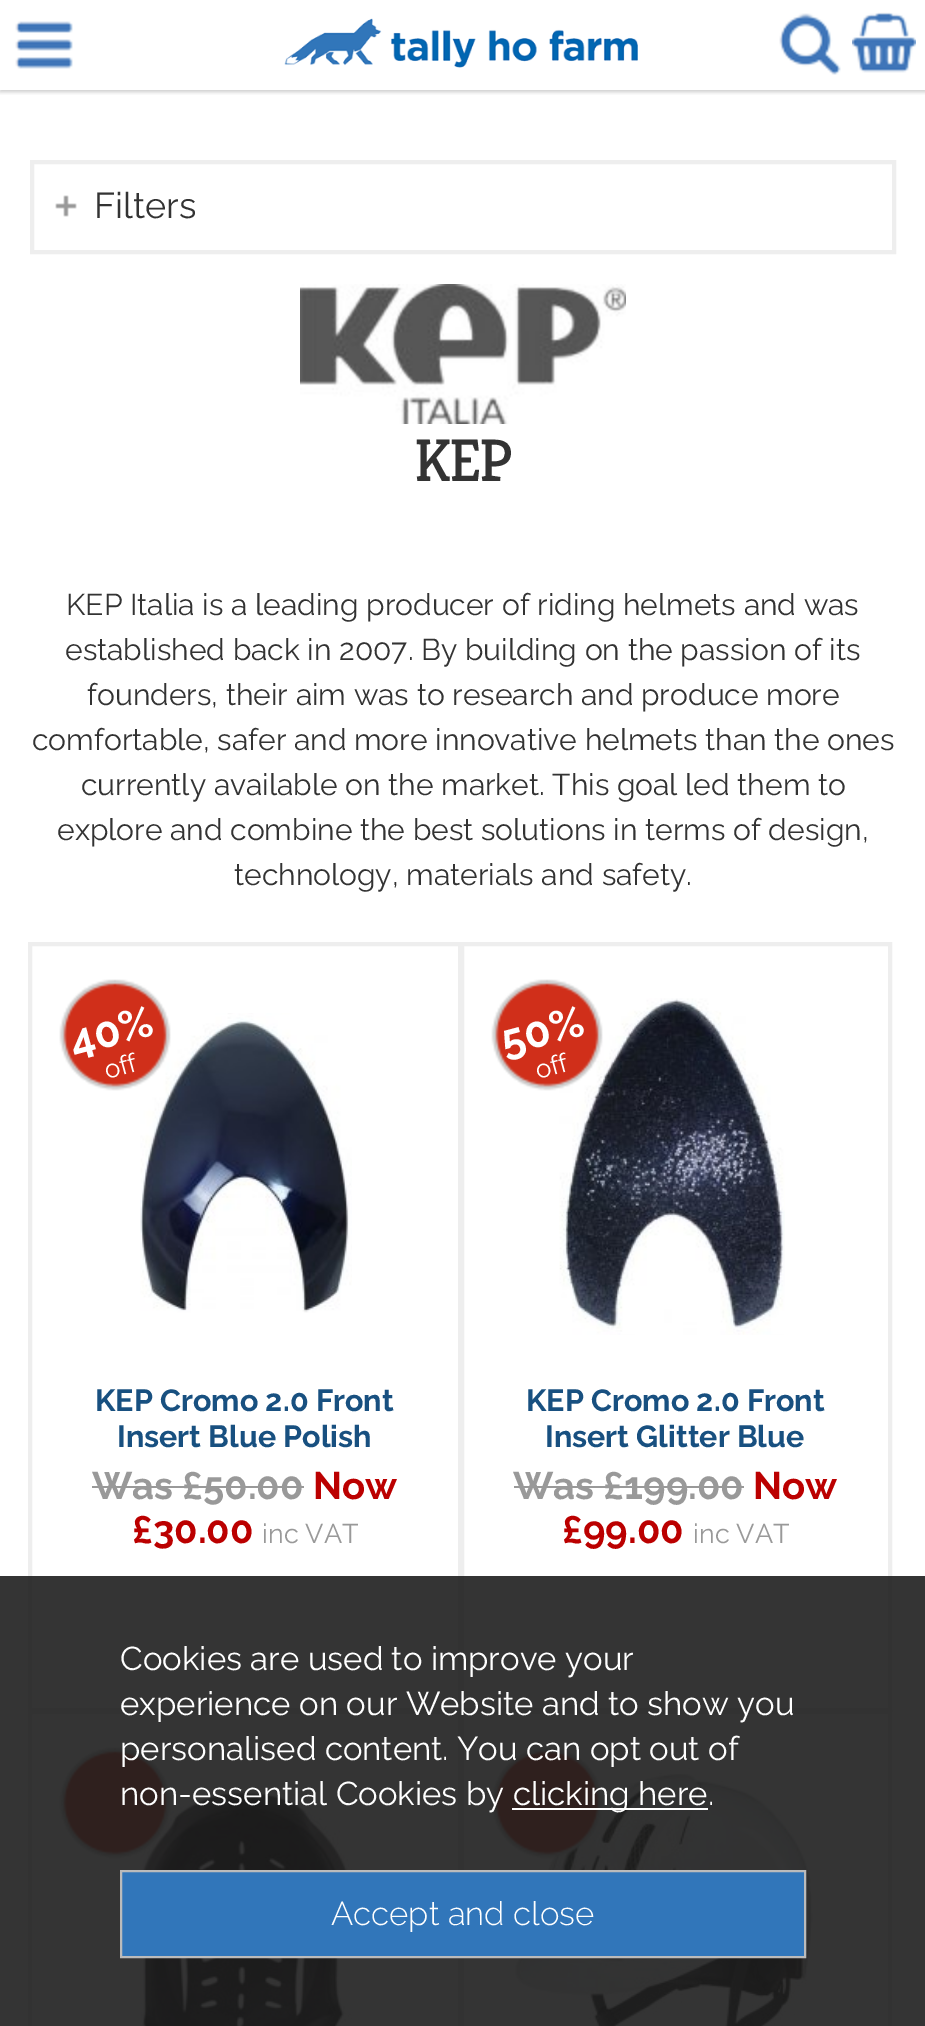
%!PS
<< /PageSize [925 2026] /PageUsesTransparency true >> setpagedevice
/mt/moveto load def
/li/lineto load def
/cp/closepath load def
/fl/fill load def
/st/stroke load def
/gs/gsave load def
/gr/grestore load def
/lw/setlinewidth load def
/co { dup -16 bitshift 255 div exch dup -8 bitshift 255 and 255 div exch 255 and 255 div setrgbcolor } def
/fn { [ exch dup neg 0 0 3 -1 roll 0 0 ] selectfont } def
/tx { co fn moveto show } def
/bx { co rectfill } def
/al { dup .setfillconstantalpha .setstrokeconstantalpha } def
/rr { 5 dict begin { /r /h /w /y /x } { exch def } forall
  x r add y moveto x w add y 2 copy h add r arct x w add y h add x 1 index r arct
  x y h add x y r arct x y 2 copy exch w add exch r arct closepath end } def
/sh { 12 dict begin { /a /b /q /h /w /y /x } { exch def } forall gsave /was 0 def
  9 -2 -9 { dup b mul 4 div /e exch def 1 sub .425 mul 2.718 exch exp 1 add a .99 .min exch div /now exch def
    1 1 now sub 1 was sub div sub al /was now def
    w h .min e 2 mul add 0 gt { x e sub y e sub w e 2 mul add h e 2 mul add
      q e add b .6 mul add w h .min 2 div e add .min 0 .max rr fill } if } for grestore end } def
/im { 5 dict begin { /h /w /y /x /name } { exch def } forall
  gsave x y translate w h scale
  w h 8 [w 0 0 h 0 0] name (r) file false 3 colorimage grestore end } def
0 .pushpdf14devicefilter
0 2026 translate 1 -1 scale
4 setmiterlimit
0 0 925 2026 16#FFFFFF bx
gs
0 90 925 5 rectclip
16#000000 co
0 2 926 90 0 2 .2 sh
gr
(media/1.raw) 15 21 58 48 im
(media/2.raw) 284 18 354 50 im
(media/3.raw) 779 13 62 62 im
(media/4.raw) 852 12 64 61 im
(media/5.raw) 55 195 22 22 im
16#EEEEEE co
4 lw
32 162 862 90 rectstroke
(media/6.raw) 300 284 326 140 im
30 944 430 766 rectstroke
(media/8.raw) 140 1013 212 300 im
(media/7.raw) 59 979 112 112 im
92 1486 212 2 16#999999 bx
16#EEEEEE co
462 944 428 766 rectstroke
(media/10.raw) 559 998 226 337 im
(media/9.raw) 491 979 112 112 im
514 1486 230 2 16#999999 bx
16#EEEEEE co
30 1712 430 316 rectstroke
(media/12.raw) 129 1791 224 235 im
(media/11.raw) 59 1747 112 112 im
462 1712 428 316 rectstroke
(media/14.raw) 511 1768 309 258 im
(media/13.raw) 491 1747 112 112 im
0.9 al
0 1576 925 450 16#1E1E1E bx
1 al
512 1808 196 2 16#FFFFFF bx
16#3176BA co
121 1871 mt 805 1871 li 805 1957 li 121 1957 li cp gs fl gr
16#BBBBBB co
2 lw
st
(Filters) 94 218 /Raleway-Regular 36 16#333333 tx
/Kreon-Regular 60 fn
414 481 mt -2 0 (KEP) ashow
(KEP Italia is a leading producer of riding helmets and was) 66 615 /Raleway-Regular 30 16#333333 tx
(established back in 2007. By building on the passion of its) 65 660 /Raleway-Regular 30 16#333333 tx
(founders, their aim was to research and produce more) 87 705 /Raleway-Regular 30 16#333333 tx
(comfortable, safer and more innovative helmets than the ones) 32 750 /Raleway-Regular 30 16#333333 tx
(currently available on the market. This goal led them to) 81 795 /Raleway-Regular 30 16#333333 tx
(explore and combine the best solutions in terms of design,) 57 840 /Raleway-Regular 30 16#333333 tx
(technology, materials and safety.) 234 885 /Raleway-Regular 30 16#333333 tx
/Raleway-Bold 43 fn
16#FFFFFF co
gs 74 1056 translate -15 rotate 0 0 mt (40%) show gr
/Raleway-Regular 26 fn
gs 107 1079 translate -15 rotate 0 0 mt (off) show gr
(KEP Cromo 2.0 Front) 95 1411 /Raleway-Bold 30.5 16#185080 tx
(Insert Blue Polish) 117 1447 /Raleway-Bold 30.5 16#185080 tx
(Was £50.00) 92 1499 /Raleway-Bold 38.25 16#999999 tx
(Now) 313 1499 /Raleway-Bold 38.25 16#BB0000 tx
(£30.00) 132 1543 /Raleway-Bold 38.25 16#BB0000 tx
(inc VAT) 262 1543 /Raleway-Regular 27 16#999999 tx
/Raleway-Bold 43 fn
16#FFFFFF co
gs 505 1056 translate -15 rotate 0 0 mt (50%) show gr
/Raleway-Regular 26 fn
gs 538 1079 translate -15 rotate 0 0 mt (off) show gr
(KEP Cromo 2.0 Front) 526 1411 /Raleway-Bold 30.5 16#185080 tx
(Insert Glitter Blue) 545 1447 /Raleway-Bold 30.5 16#185080 tx
(Was £199.00) 513 1499 /Raleway-Bold 38.25 16#999999 tx
(Now) 753 1499 /Raleway-Bold 38.25 16#BB0000 tx
(£99.00) 562 1543 /Raleway-Bold 38.25 16#BB0000 tx
(inc VAT) 693 1543 /Raleway-Regular 27 16#999999 tx
(Cookies are used to improve your) 120 1670 /Raleway-Regular 33 16#FFFFFF tx
(experience on our Website and to show you) 120 1715 /Raleway-Regular 33 16#FFFFFF tx
(personalised content. You can opt out of) 120 1760 /Raleway-Regular 33 16#FFFFFF tx
(non-essential Cookies by) 120 1805 /Raleway-Regular 33 16#FFFFFF tx
(clicking here.) 513 1805 /Raleway-Regular 33 16#FFFFFF tx
(Accept and close) 331 1925 /Raleway-Light 33 16#FFFFFF tx
.poppdf14devicefilter showpage
